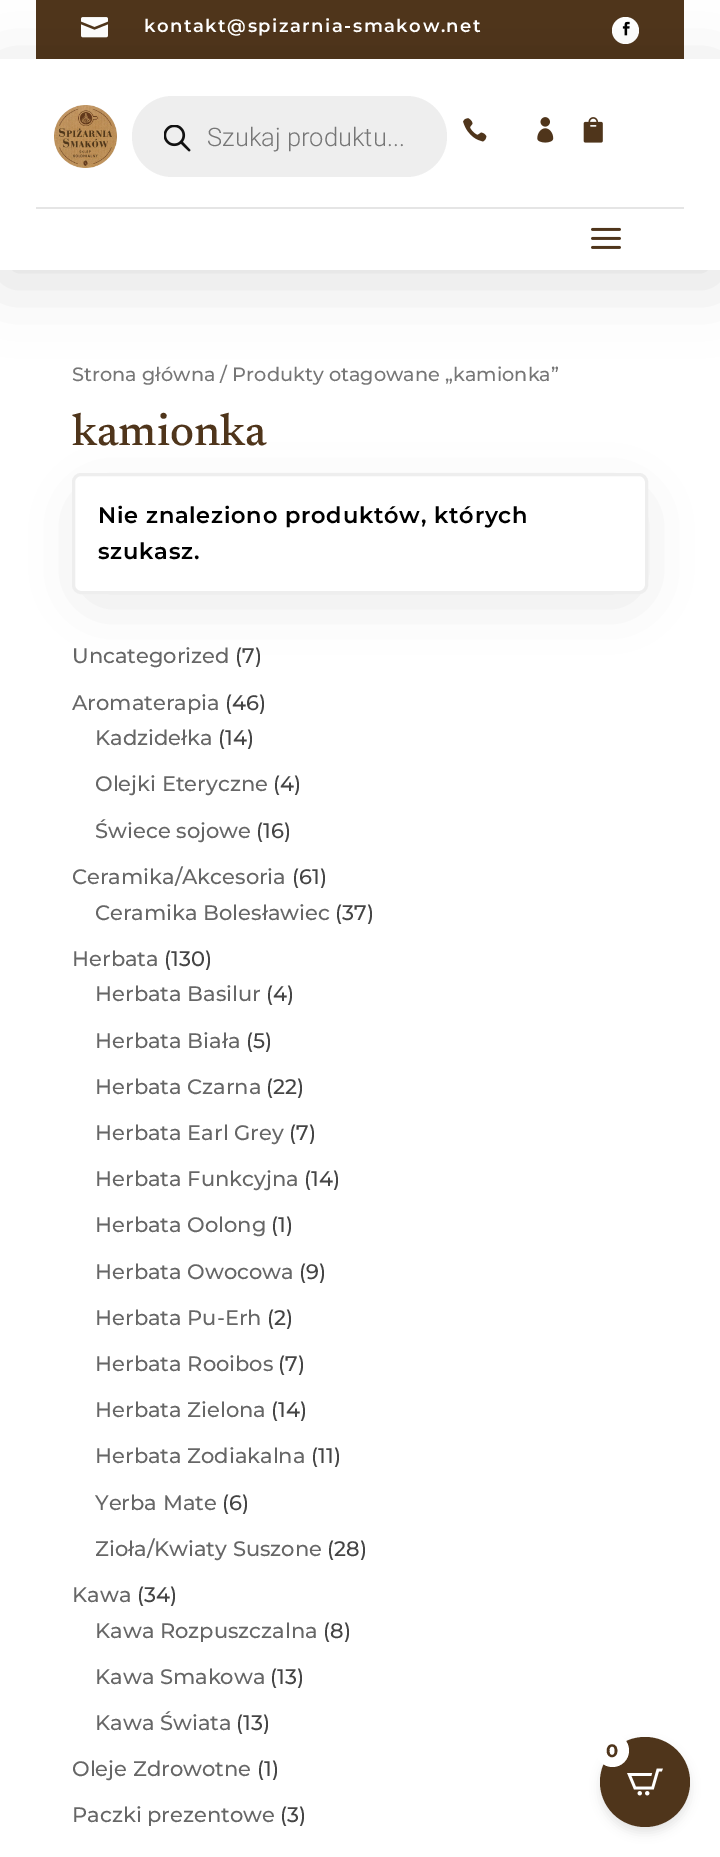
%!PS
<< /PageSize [720 1857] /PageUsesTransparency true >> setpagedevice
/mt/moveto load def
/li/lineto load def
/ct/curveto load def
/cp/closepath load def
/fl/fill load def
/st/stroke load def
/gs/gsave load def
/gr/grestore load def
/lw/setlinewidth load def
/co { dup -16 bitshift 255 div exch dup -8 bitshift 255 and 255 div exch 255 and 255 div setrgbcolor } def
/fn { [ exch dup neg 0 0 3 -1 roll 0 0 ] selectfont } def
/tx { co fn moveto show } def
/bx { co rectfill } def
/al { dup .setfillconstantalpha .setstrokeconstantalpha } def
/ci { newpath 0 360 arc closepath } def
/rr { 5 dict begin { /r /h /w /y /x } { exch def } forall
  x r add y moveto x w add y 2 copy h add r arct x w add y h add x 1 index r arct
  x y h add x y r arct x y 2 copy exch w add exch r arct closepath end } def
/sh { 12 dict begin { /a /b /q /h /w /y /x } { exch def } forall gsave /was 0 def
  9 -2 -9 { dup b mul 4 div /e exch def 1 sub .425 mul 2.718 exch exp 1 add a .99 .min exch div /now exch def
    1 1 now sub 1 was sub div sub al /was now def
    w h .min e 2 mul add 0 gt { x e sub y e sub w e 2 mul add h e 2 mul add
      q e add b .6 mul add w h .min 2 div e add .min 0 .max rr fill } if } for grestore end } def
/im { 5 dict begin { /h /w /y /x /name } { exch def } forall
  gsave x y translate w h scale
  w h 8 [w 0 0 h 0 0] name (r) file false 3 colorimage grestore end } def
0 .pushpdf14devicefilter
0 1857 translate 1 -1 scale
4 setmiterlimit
0 0 720 1857 16#FFFFFF bx
36 0 648 59 16#4F351B bx
(media/1.raw) 81 17 27 21 im
16#FFFFFF co
625.5 30.5 13.5 ci fl
(media/2.raw) 622 21 8 15 im
16#000000 co
0 71 720 211 0 34 .12 sh
0 59 720 211 16#FFFFFF bx
36 207 648 2 16#E5E5E5 bx
(media/3.raw) 54 105 63 63 im
16#EEEEEE co
132 96 315 81 40.5 rr fl
(media/4.raw) 164 125 27 27 im
(media/5.raw) 463 118 24 24 im
(media/6.raw) 537 117 17 26 im
(media/7.raw) 583 117 20 26 im
(media/8.raw) 591 227 30 22 im
gs
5 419 mt 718 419 li 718 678 li 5 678 li cp 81 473 mt 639 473 li 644 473 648 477 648 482 ct 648 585 li 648 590 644 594 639 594 ct 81 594 li 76 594 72 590 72 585 ct 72 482 li 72 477 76 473 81 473 ct cp eoclip newpath
16#19191A co
96 510 531 77 0 30 .17 sh
gr
3 lw
73.5 474.5 573 118 7.5 rr st
16#000000 co
600 1743 90 90 45 5 .1 sh
16#4F351B co
645 1782 45 ci fl
16#FFFFFF co
612.5 1750.5 16.5 ci fl
(media/9.raw) 627 1768 36 28 im
/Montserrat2-Thin 18 fn
144 32 mt 1.5 0 (kontakt@spizarnia-smakow.net) ashow
(Szukaj produktu...) 207 146 /Roboto-Light 25.5 16#767676 tx
(Strona główna / Produkty otagowane „kamionka”) 72 381 /Montserrat-Thin 19.3 16#767676 tx
(kamionka) 72 445 /Newsreader-Medium 45 16#4F351B tx
/Montserrat2-Thin 22.5 fn
16#000000 co
98 523 mt .75 0 (Nie znaleziono produktów, których) ashow
98 559 mt .75 0 (szukasz.) ashow
(Uncategorized) 72 663 /Montserrat-Thin 21 16#666666 tx
(\(7\)) 235 663 /Montserrat-Thin 21 16#444444 tx
(Aromaterapia) 72 710 /Montserrat-Thin 21 16#666666 tx
(\(46\)) 225 710 /Montserrat-Thin 21 16#444444 tx
(Kadzidełka) 95 745 /Montserrat-Thin 21 16#666666 tx
(\(14\)) 218 745 /Montserrat-Thin 21 16#444444 tx
(Olejki Eteryczne) 95 791 /Montserrat-Thin 21 16#666666 tx
(\(4\)) 273 791 /Montserrat-Thin 21 16#444444 tx
(Świece sojowe) 95 838 /Montserrat-Thin 21 16#666666 tx
(\(16\)) 256 838 /Montserrat-Thin 21 16#444444 tx
(Ceramika/Akcesoria) 72 884 /Montserrat-Thin 21 16#666666 tx
(\(61\)) 292 884 /Montserrat-Thin 21 16#444444 tx
(Ceramika Bolesławiec) 95 920 /Montserrat-Thin 21 16#666666 tx
(\(37\)) 335 920 /Montserrat-Thin 21 16#444444 tx
(Herbata) 72 966 /Montserrat-Thin 21 16#666666 tx
(\(130\)) 164 966 /Montserrat-Thin 21 16#444444 tx
(Herbata Basilur) 95 1001 /Montserrat-Thin 21 16#666666 tx
(\(4\)) 266 1001 /Montserrat-Thin 21 16#444444 tx
(Herbata Biała) 95 1048 /Montserrat-Thin 21 16#666666 tx
(\(5\)) 246 1048 /Montserrat-Thin 21 16#444444 tx
(Herbata Czarna) 95 1094 /Montserrat-Thin 21 16#666666 tx
(\(22\)) 266 1094 /Montserrat-Thin 21 16#444444 tx
(Herbata Earl Grey) 95 1140 /Montserrat-Thin 21 16#666666 tx
(\(7\)) 289 1140 /Montserrat-Thin 21 16#444444 tx
(Herbata Funkcyjna) 95 1186 /Montserrat-Thin 21 16#666666 tx
(\(14\)) 304 1186 /Montserrat-Thin 21 16#444444 tx
(Herbata Oolong) 95 1232 /Montserrat-Thin 21 16#666666 tx
(\(1\)) 271 1232 /Montserrat-Thin 21 16#444444 tx
(Herbata Owocowa) 95 1279 /Montserrat-Thin 21 16#666666 tx
(\(9\)) 299 1279 /Montserrat-Thin 21 16#444444 tx
(Herbata Pu-Erh) 95 1325 /Montserrat-Thin 21 16#666666 tx
(\(2\)) 267 1325 /Montserrat-Thin 21 16#444444 tx
(Herbata Rooibos) 95 1371 /Montserrat-Thin 21 16#666666 tx
(\(7\)) 278 1371 /Montserrat-Thin 21 16#444444 tx
(Herbata Zielona) 95 1417 /Montserrat-Thin 21 16#666666 tx
(\(14\)) 271 1417 /Montserrat-Thin 21 16#444444 tx
(Herbata Zodiakalna) 95 1463 /Montserrat-Thin 21 16#666666 tx
(\(11\)) 311 1463 /Montserrat-Thin 21 16#444444 tx
(Yerba Mate) 95 1510 /Montserrat-Thin 21 16#666666 tx
(\(6\)) 222 1510 /Montserrat-Thin 21 16#444444 tx
(Zioła/Kwiaty Suszone) 95 1556 /Montserrat-Thin 21 16#666666 tx
(\(28\)) 327 1556 /Montserrat-Thin 21 16#444444 tx
(Kawa) 72 1602 /Montserrat-Thin 21 16#666666 tx
(\(34\)) 137 1602 /Montserrat-Thin 21 16#444444 tx
(Kawa Rozpuszczalna) 95 1638 /Montserrat-Thin 21 16#666666 tx
(\(8\)) 323 1638 /Montserrat-Thin 21 16#444444 tx
(Kawa Smakowa) 95 1684 /Montserrat-Thin 21 16#666666 tx
(\(13\)) 270 1684 /Montserrat-Thin 21 16#444444 tx
(Kawa Świata) 95 1730 /Montserrat-Thin 21 16#666666 tx
(\(13\)) 236 1730 /Montserrat-Thin 21 16#444444 tx
(Oleje Zdrowotne) 72 1776 /Montserrat-Thin 21 16#666666 tx
(\(1\)) 257 1776 /Montserrat-Thin 21 16#444444 tx
(Paczki prezentowe) 72 1822 /Montserrat-Thin 21 16#666666 tx
(\(3\)) 280 1822 /Montserrat-Thin 21 16#444444 tx
(0) 606 1757 /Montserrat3-Thin 18 16#4F351B tx
.poppdf14devicefilter showpage
